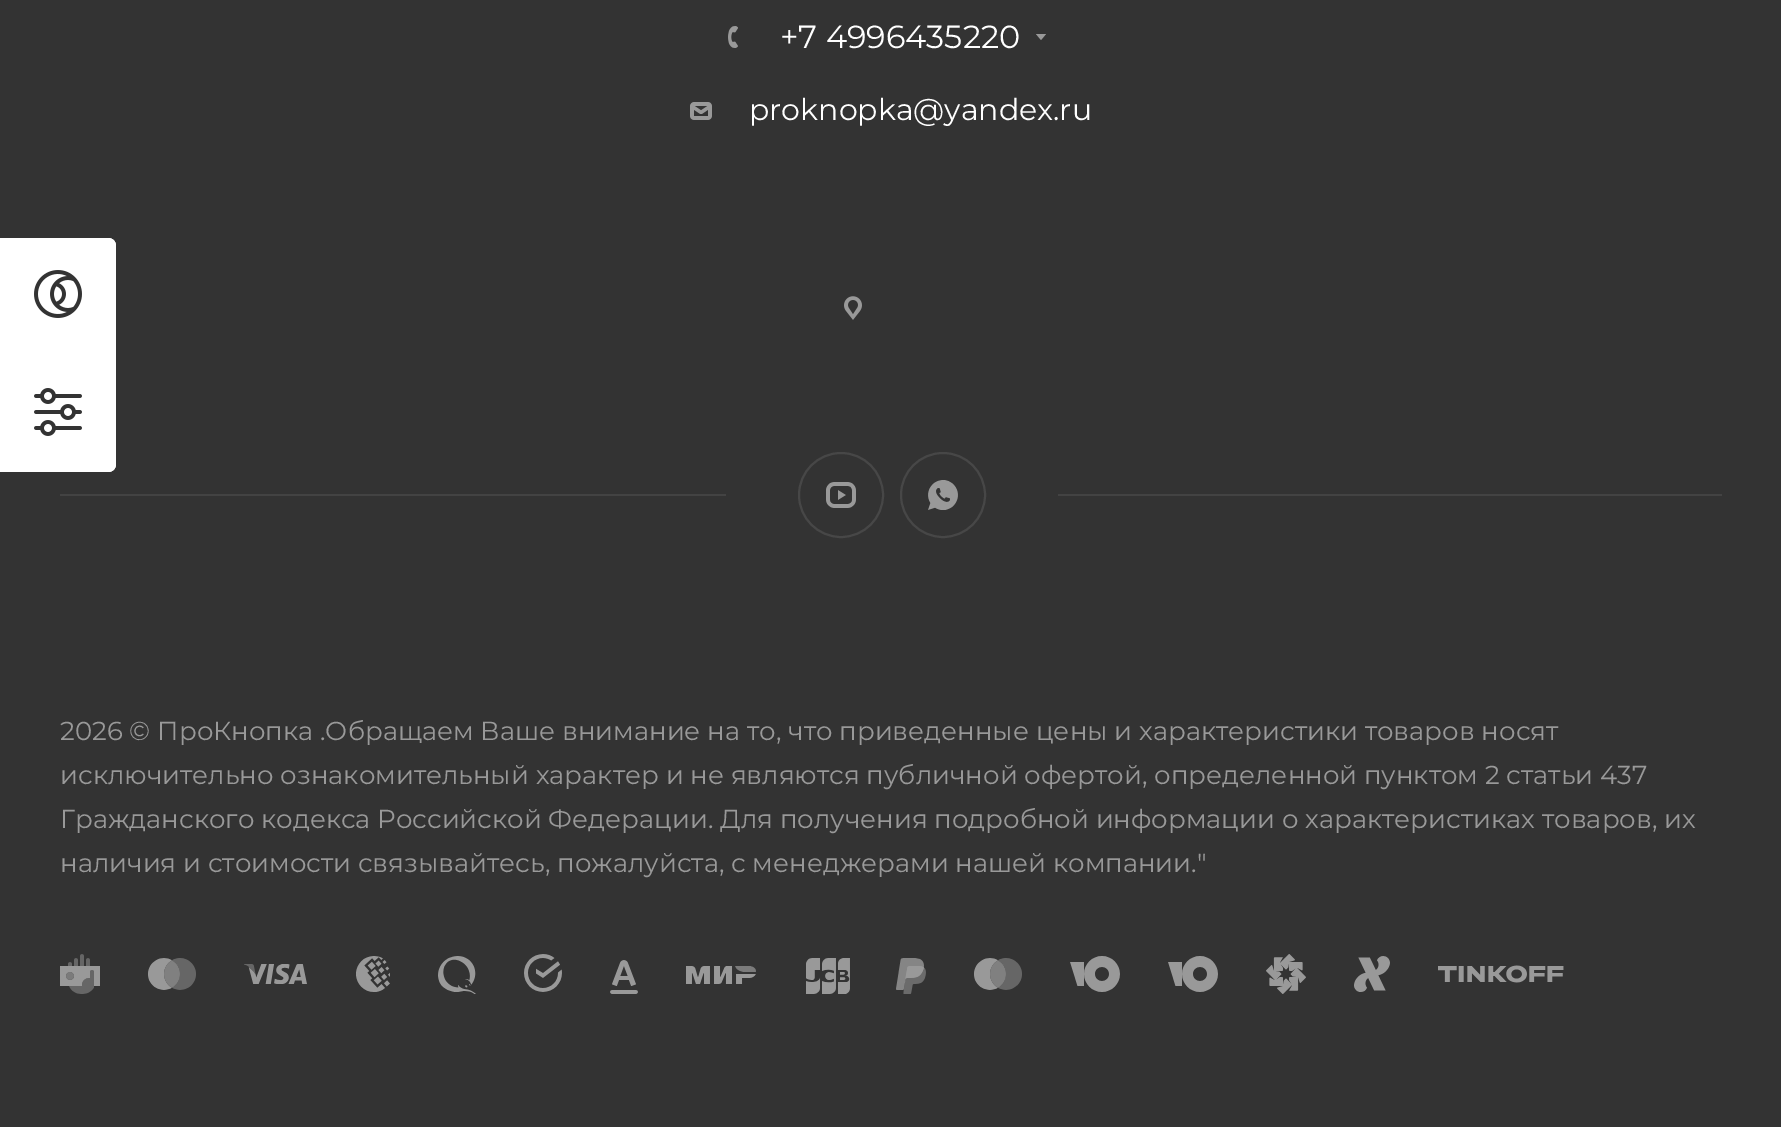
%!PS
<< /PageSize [1781 1127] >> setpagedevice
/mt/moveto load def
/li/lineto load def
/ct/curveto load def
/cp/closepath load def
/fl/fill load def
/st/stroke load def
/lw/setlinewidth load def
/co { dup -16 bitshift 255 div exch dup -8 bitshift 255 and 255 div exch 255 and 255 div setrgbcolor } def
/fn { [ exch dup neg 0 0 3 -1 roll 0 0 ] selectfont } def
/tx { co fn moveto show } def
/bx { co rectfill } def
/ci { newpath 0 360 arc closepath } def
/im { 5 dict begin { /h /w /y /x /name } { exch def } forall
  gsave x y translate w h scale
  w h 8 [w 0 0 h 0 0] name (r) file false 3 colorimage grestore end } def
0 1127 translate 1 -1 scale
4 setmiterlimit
0 0 1781 1127 16#333333 bx
16#FFFFFF co
0 238 mt 108 238 li 112.5 238 116 241.5 116 246 ct 116 464 li 116 468.5 112.5 472 108 472 ct 0 472 li cp fl
0 238 mt 108 238 li 112.5 238 116 241.5 116 246 ct 116 354 li 0 354 li cp fl
(media/1.raw) 34 270 48 48 im
0 356 mt 116 356 li 116 464 li 116 468.5 112.5 472 108 472 ct 0 472 li cp fl
(media/2.raw) 34 388 48 48 im
(media/3.raw) 728 26 10 22 im
16#999999 co
1036 34 mt 1046 34 li 1041 40 li cp eofill
(media/4.raw) 690 102 22 18 im
(media/5.raw) 844 296 18 24 im
60 494 1662 2 16#434343 bx
726 494 332 2 16#333333 bx
(media/6.raw) 826 482 30 26 im
16#474747 co
2 lw
841 495 42 ci st
(media/7.raw) 928 480 30 30 im
943 495 42 ci st
(media/8.raw) 60 954 40 40 im
(media/9.raw) 148 958 48 32 im
(media/10.raw) 244 964 63 20 im
(media/11.raw) 356 956 34 36 im
(media/12.raw) 438 956 38 38 im
(media/13.raw) 524 954 38 38 im
(media/14.raw) 610 960 28 34 im
(media/15.raw) 686 966 70 18 im
(media/16.raw) 806 958 44 36 im
(media/17.raw) 896 958 30 36 im
(media/18.raw) 974 958 48 32 im
(media/19.raw) 1070 956 50 36 im
(media/19.raw) 1168 956 50 36 im
(media/20.raw) 1266 954 40 40 im
(media/21.raw) 1354 956 36 36 im
(media/22.raw) 1438 965 126 18 im
(+7 4996435220) 780 48 /Montserrat-Regular 32 16#FFFFFF tx
(proknopka@yandex.ru) 749 120 /Montserrat-Regular 30 16#FFFFFF tx
(2026 © ПроКнопка .Обращаем Ваше внимание на то, что приведенные цены и характеристики товаров носят) 60 740 /Montserrat-Regular 26 16#999999 tx
(исключительно ознакомительный характер и не являются публичной офертой, определенной пунктом 2 статьи 437) 60 784 /Montserrat-Regular 26 16#999999 tx
(Гражданского кодекса Российской Федерации. Для получения подробной информации о характеристиках товаров, их) 60 828 /Montserrat-Regular 26 16#999999 tx
(наличия и стоимости связывайтесь, пожалуйста, с менеджерами нашей компании.") 60 872 /Montserrat-Regular 26 16#999999 tx
showpage
